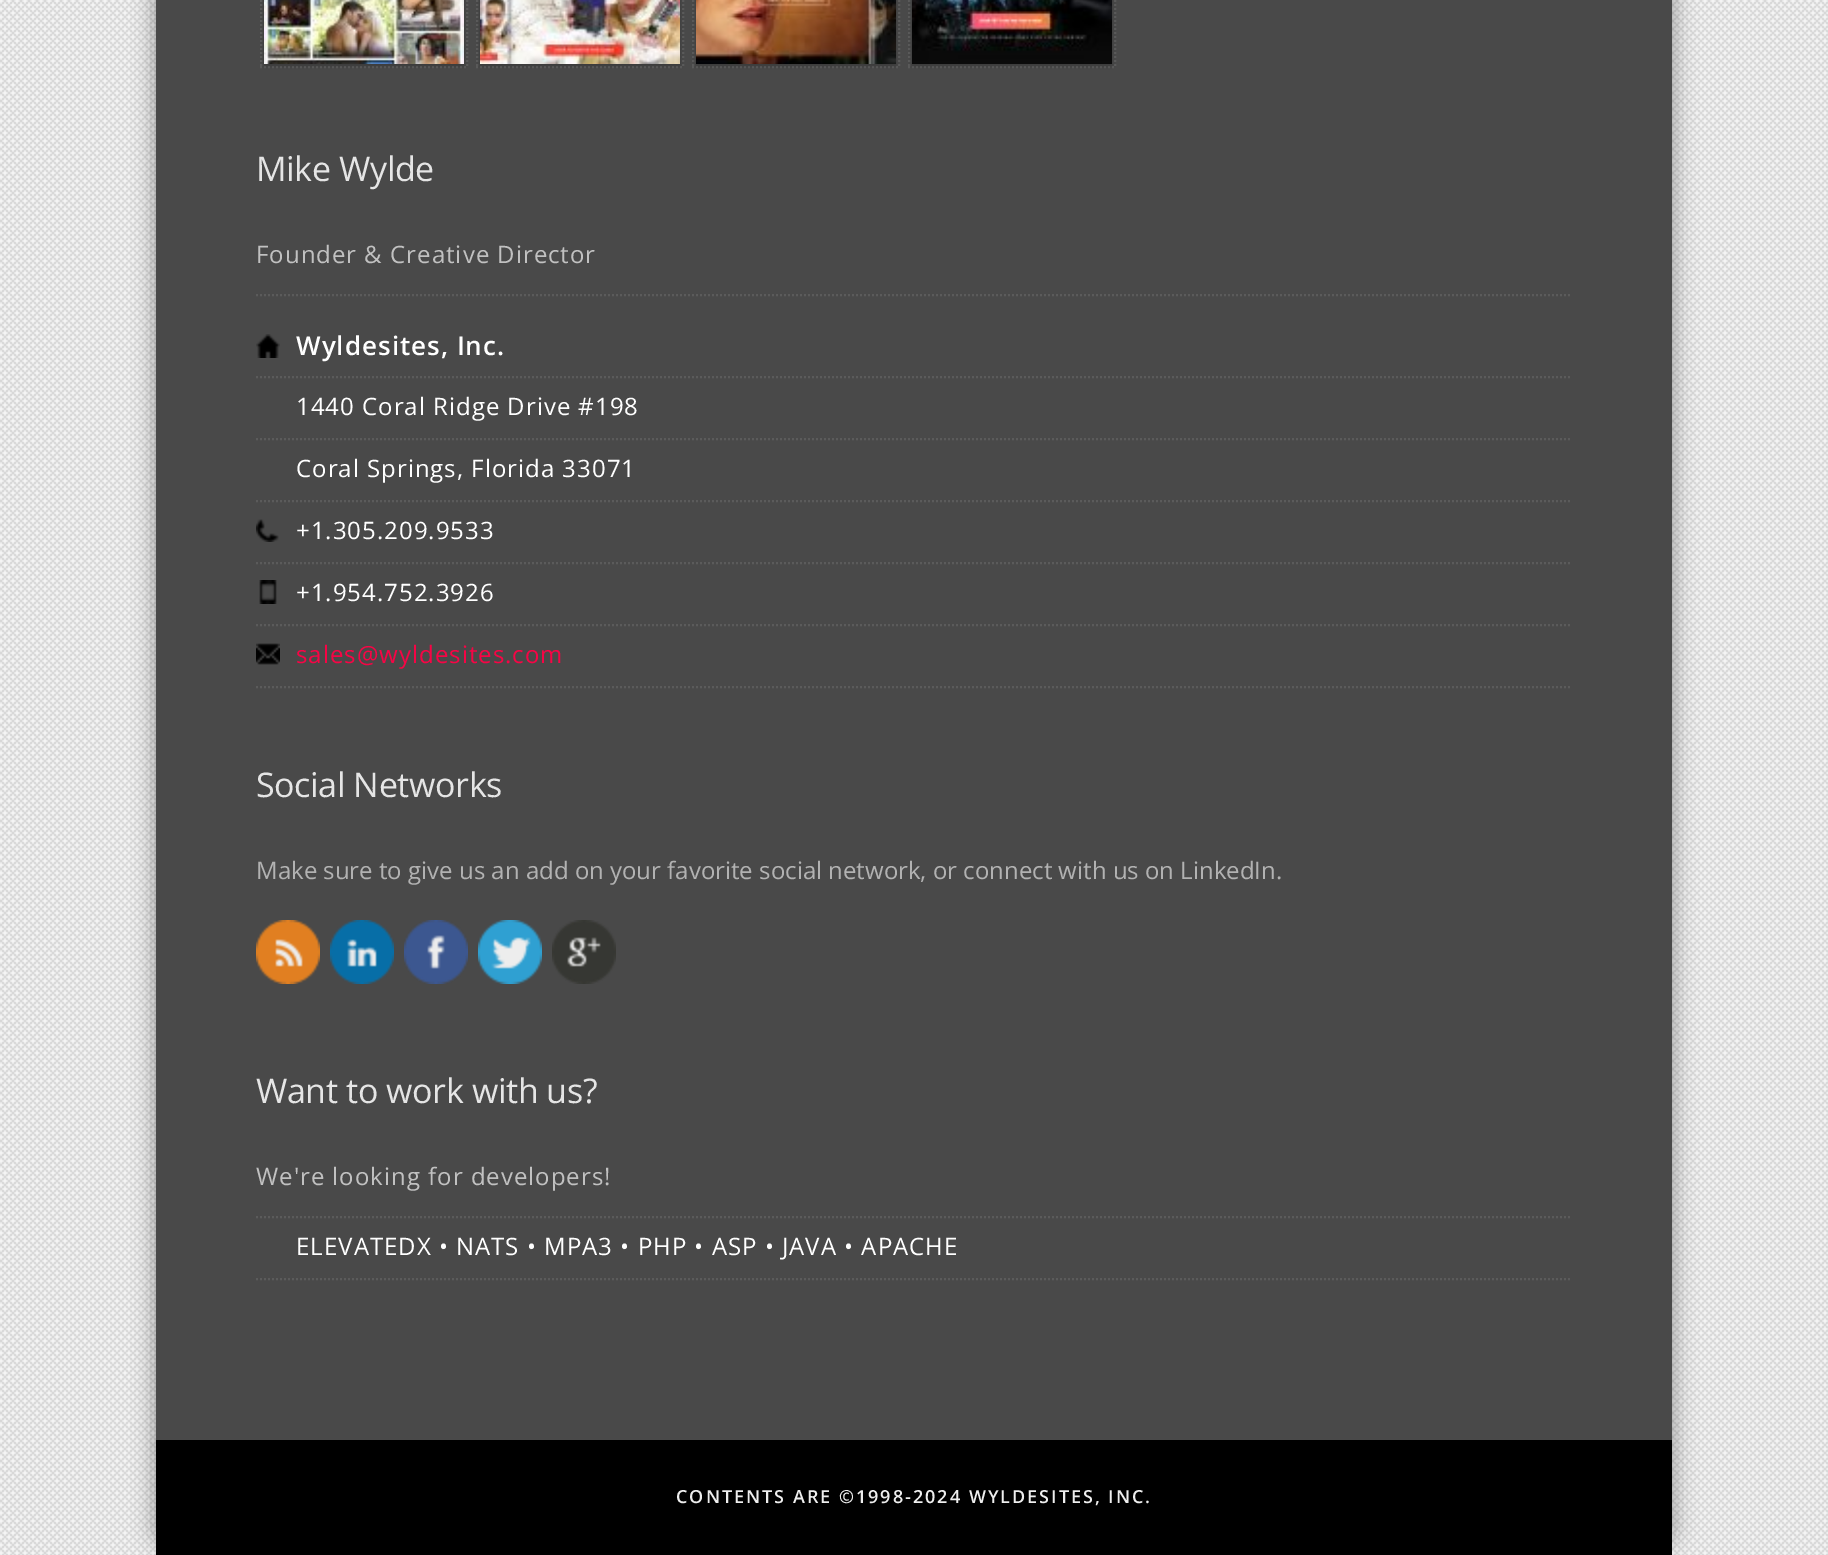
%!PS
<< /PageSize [1828 1555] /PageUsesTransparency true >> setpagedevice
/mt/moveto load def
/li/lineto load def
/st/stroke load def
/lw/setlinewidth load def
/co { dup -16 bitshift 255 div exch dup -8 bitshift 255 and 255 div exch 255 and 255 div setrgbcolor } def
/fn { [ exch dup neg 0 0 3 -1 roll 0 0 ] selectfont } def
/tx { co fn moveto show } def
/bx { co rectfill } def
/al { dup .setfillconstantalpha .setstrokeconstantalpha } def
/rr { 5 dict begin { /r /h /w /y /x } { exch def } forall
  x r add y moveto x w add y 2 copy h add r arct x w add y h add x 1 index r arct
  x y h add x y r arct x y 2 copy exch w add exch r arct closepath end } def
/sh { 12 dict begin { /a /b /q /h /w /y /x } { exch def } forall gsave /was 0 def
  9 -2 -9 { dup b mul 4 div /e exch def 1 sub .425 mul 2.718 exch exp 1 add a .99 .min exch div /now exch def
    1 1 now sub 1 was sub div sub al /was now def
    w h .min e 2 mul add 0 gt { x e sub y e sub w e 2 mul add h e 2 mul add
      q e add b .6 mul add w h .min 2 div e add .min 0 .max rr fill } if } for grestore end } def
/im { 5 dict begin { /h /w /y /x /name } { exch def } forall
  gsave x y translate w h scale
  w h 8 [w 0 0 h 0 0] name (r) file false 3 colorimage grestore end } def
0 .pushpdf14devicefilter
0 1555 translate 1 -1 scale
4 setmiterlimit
0 0 1828 1555 16#F7F7F7 bx
(media/1.raw) 0 0 1828 1555 im
16#000000 co
152 -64 1524 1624 34 10 .3 sh
156 0 1516 1440 16#494949 bx
16#5B5B5B co
2 lw
[2 2] 0 setdash
467 -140 mt 467 68 li st
260 67 mt 468 67 li st
261 -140 mt 261 68 li st
16#000000 co
264 -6 200 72 0 2 .2 sh
(media/2.raw) 264 0 200 64 im
16#5B5B5B co
683 -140 mt 683 68 li st
476 67 mt 684 67 li st
477 -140 mt 477 68 li st
16#000000 co
480 -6 200 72 0 2 .2 sh
(media/3.raw) 480 0 200 64 im
16#5B5B5B co
899 -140 mt 899 68 li st
692 67 mt 900 67 li st
693 -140 mt 693 68 li st
16#000000 co
696 -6 200 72 0 2 .2 sh
(media/4.raw) 696 0 200 64 im
16#5B5B5B co
1115 -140 mt 1115 68 li st
908 67 mt 1116 67 li st
909 -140 mt 909 68 li st
16#000000 co
912 -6 200 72 0 2 .2 sh
(media/5.raw) 912 0 200 64 im
16#5B5B5B co
256 295 mt 1572 295 li st
256 377 mt 1572 377 li st
(media/6.raw) 256 334 24 24 im
256 439 mt 1572 439 li st
256 501 mt 1572 501 li st
256 563 mt 1572 563 li st
(media/7.raw) 256 519 23 23 im
256 625 mt 1572 625 li st
(media/8.raw) 259 580 18 24 im
256 687 mt 1572 687 li st
(media/9.raw) 256 643 24 22 im
(media/10.raw) 256 920 64 64 im
(media/11.raw) 330 920 64 64 im
(media/12.raw) 404 920 64 64 im
(media/13.raw) 478 920 64 64 im
(media/14.raw) 552 920 64 64 im
256 1217 mt 1572 1217 li st
256 1279 mt 1572 1279 li st
156 1440 1516 115 16#000000 bx
/OpenSans-Regular 34 fn
16#E5E5E5 co
256 181 mt -.4 0 (Mike Wylde) ashow
/OpenSans-Regular 24 fn
16#C1C1C1 co
256 263 mt 1 0 (Founder & Creative Director) ashow
/OpenSans-SemiBold 26 fn
16#FFFFFF co
296 355 mt 1 0 (Wyldesites, Inc.) ashow
/OpenSans-Regular 24 fn
296 415 mt 1 0 (1440 Coral Ridge Drive #198) ashow
296 477 mt 1 0 (Coral Springs, Florida 33071) ashow
296 539 mt 1 0 (+1.305.209.9533) ashow
296 601 mt 1 0 (+1.954.752.3926) ashow
16#F70445 co
296 663 mt 1 0 (sales@wyldesites.com) ashow
/OpenSans-Regular 34 fn
16#E5E5E5 co
256 797 mt -.4 0 (Social Networks) ashow
(Make sure to give us an add on your favorite social network, or connect with us on LinkedIn.) 256 879 /OpenSans-Regular 24 16#B2B2B2 tx
/OpenSans-Regular 34 fn
16#E5E5E5 co
256 1103 mt -.4 0 (Want to work with us?) ashow
/OpenSans-Regular 24 fn
16#C1C1C1 co
256 1185 mt 1 0 (We're looking for developers!) ashow
16#FFFFFF co
296 1255 mt 1 0 (ELEVATEDX • NATS • MPA3 • PHP • ASP • JAVA • APACHE) ashow
/OpenSans-SemiBold 18 fn
16#EEEEEE co
676 1503 mt 2 0 (CONTENTS ARE ©1998-2024 WYLDESITES, INC.) ashow
.poppdf14devicefilter showpage
